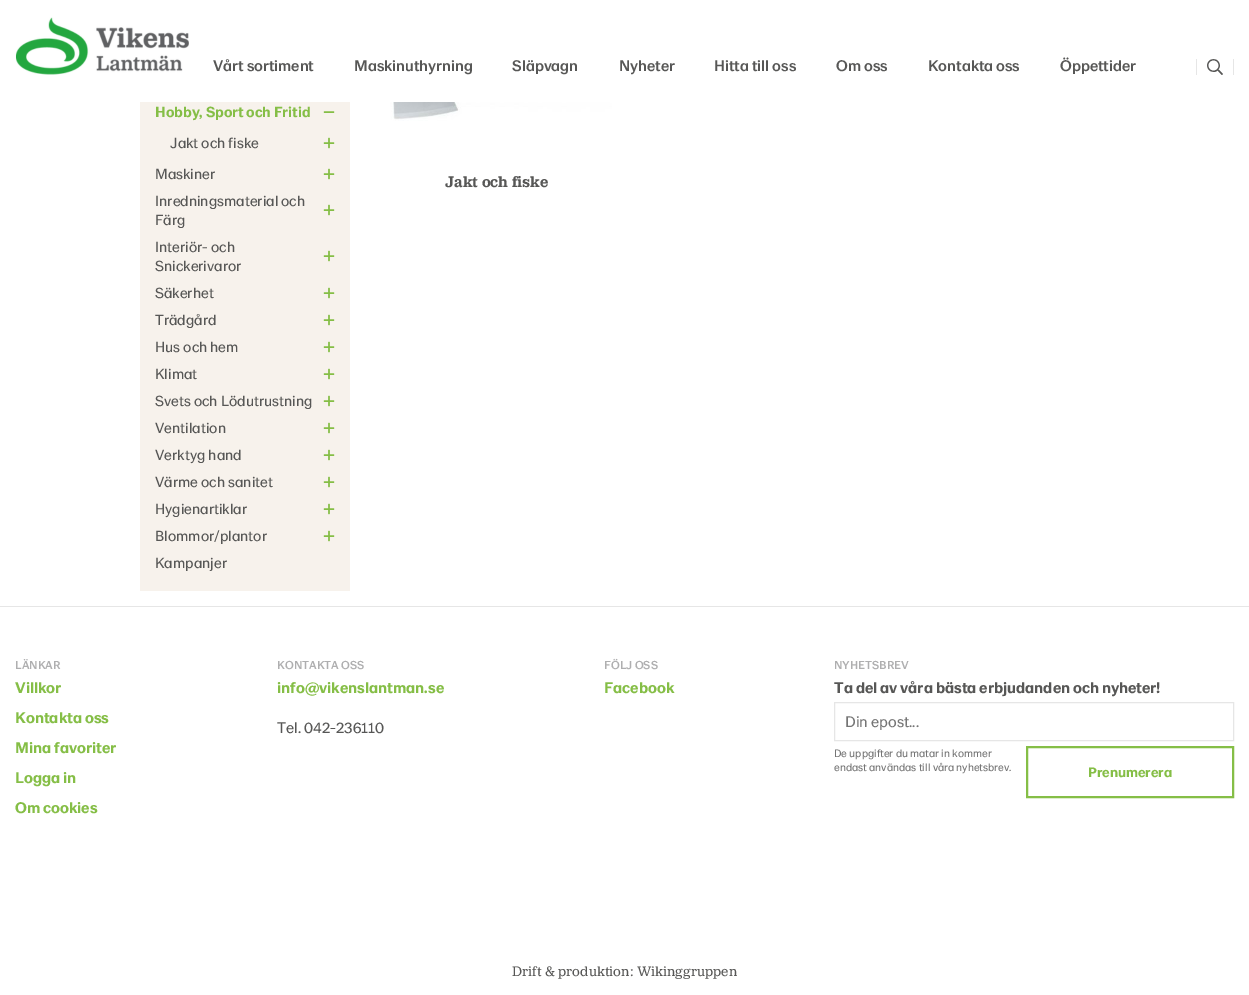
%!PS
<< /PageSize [1249 995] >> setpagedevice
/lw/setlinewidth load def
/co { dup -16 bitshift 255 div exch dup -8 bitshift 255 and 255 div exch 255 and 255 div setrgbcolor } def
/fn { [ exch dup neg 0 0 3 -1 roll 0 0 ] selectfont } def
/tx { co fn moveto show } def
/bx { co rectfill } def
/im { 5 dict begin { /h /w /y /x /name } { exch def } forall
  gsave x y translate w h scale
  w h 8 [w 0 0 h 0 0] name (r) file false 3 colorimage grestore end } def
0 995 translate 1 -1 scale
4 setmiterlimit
0 0 1249 995 16#FFFFFF bx
(media/1.raw) 15 17 174 58 im
1233 59 1 16 16#E6E6E6 bx
1196 59 1 16 16#E6E6E6 bx
(media/2.raw) 1207 59 16 16 im
140 102 210 489 16#F7F2EC bx
(media/3.raw) 323 111 12 2 im
(media/4.raw) 323 137 12 12 im
(media/4.raw) 323 168 12 12 im
(media/4.raw) 323 204 12 12 im
(media/4.raw) 323 250 12 12 im
(media/4.raw) 323 287 12 12 im
(media/4.raw) 323 314 12 12 im
(media/4.raw) 323 341 12 12 im
(media/4.raw) 323 368 12 12 im
(media/4.raw) 323 395 12 12 im
(media/4.raw) 323 422 12 12 im
(media/4.raw) 323 449 12 12 im
(media/4.raw) 323 476 12 12 im
(media/4.raw) 323 503 12 12 im
(media/4.raw) 323 530 12 12 im
(media/5.raw) 390 102 222 19 im
0 606 1249 1 16#E6E6E6 bx
834.5 702.5 399 38 rectstroke
16#85BE46 co
2 lw
1027 747 206 50 rectstroke
(Vårt sortiment) 213 71 /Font-Medium 16 16#575756 tx
(Maskinuthyrning) 354 71 /Font-Medium 16 16#575756 tx
(Släpvagn) 512 71 /Font-Medium 16 16#575756 tx
(Nyheter) 619 71 /Font-Medium 16 16#575756 tx
(Hitta till oss) 714 71 /Font-Medium 16 16#575756 tx
(Om oss) 836 71 /Font-Medium 16 16#575756 tx
(Kontakta oss) 928 71 /Font-Medium 16 16#575756 tx
(Öppettider) 1060 71 /Font-Medium 16 16#575756 tx
(Hobby, Sport och Fritid) 155 117 /Font-Bold 15.25 16#85BE46 tx
(Jakt och fiske) 170 148 /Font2-Regular 15.25 16#575756 tx
(Maskiner) 155 179 /Font2-Regular 15.25 16#575756 tx
(Inredningsmaterial och) 155 206 /Font2-Regular 15.25 16#575756 tx
(Färg) 155 225 /Font2-Regular 15.25 16#575756 tx
(Interiör- och) 155 252 /Font2-Regular 15.25 16#575756 tx
(Snickerivaror) 155 271 /Font2-Regular 15.25 16#575756 tx
(Säkerhet) 155 298 /Font2-Regular 15.25 16#575756 tx
(Trädgård) 155 325 /Font2-Regular 15.25 16#575756 tx
(Hus och hem) 155 352 /Font2-Regular 15.25 16#575756 tx
(Klimat) 155 379 /Font2-Regular 15.25 16#575756 tx
(Svets och Lödutrustning) 155 406 /Font2-Regular 15.25 16#575756 tx
(Ventilation) 155 433 /Font2-Regular 15.25 16#575756 tx
(Verktyg hand) 155 460 /Font2-Regular 15.25 16#575756 tx
(Värme och sanitet) 155 487 /Font2-Regular 15.25 16#575756 tx
(Hygienartiklar) 155 514 /Font2-Regular 15.25 16#575756 tx
(Blommor/plantor) 155 541 /Font2-Regular 15.25 16#575756 tx
(Kampanjer) 155 568 /Font2-Regular 15.25 16#575756 tx
(Jakt och fiske) 445 187 /Font2-Bold 16 16#575756 tx
(LÄNKAR) 15 669 /Font-Medium 12 16#AFAFB0 tx
(Villkor) 15 693 /Font-Bold 16 16#85BE46 tx
(Kontakta oss) 15 723 /Font-Bold 16 16#85BE46 tx
(Mina favoriter) 15 753 /Font-Bold 16 16#85BE46 tx
(Logga in) 15 783 /Font-Bold 16 16#85BE46 tx
(Om cookies) 15 813 /Font-Bold 16 16#85BE46 tx
(KONTAKTA OSS) 277 669 /Font-Medium 12 16#AFAFB0 tx
(info@vikenslantman.se) 277 693 /Font-Bold 16 16#85BE46 tx
(Tel. 042-236110) 277 733 /Font2-Regular 16 16#575756 tx
(FÖLJ OSS) 604 669 /Font-Medium 12 16#AFAFB0 tx
(Facebook) 604 693 /Font-Bold 16 16#85BE46 tx
(NYHETSBREV) 834 669 /Font-Medium 12 16#AFAFB0 tx
(Ta del av våra bästa erbjudanden och nyheter!) 834 693 /Font-Bold 16 16#575756 tx
(Din epost...) 845 727 /Font2-Regular 16 16#757575 tx
(De uppgifter du matar in kommer) 834 757 /Font2-Regular 11.25 16#757575 tx
(endast användas till våra nyhetsbrev.) 834 771 /Font2-Regular 11.25 16#757575 tx
(Prenumerera) 1088 777 /Font-Bold 14.4 16#85BE46 tx
(Drift & produktion: Wikinggruppen) 512 976 /Font-Regular 14.4 16#575756 tx
showpage
